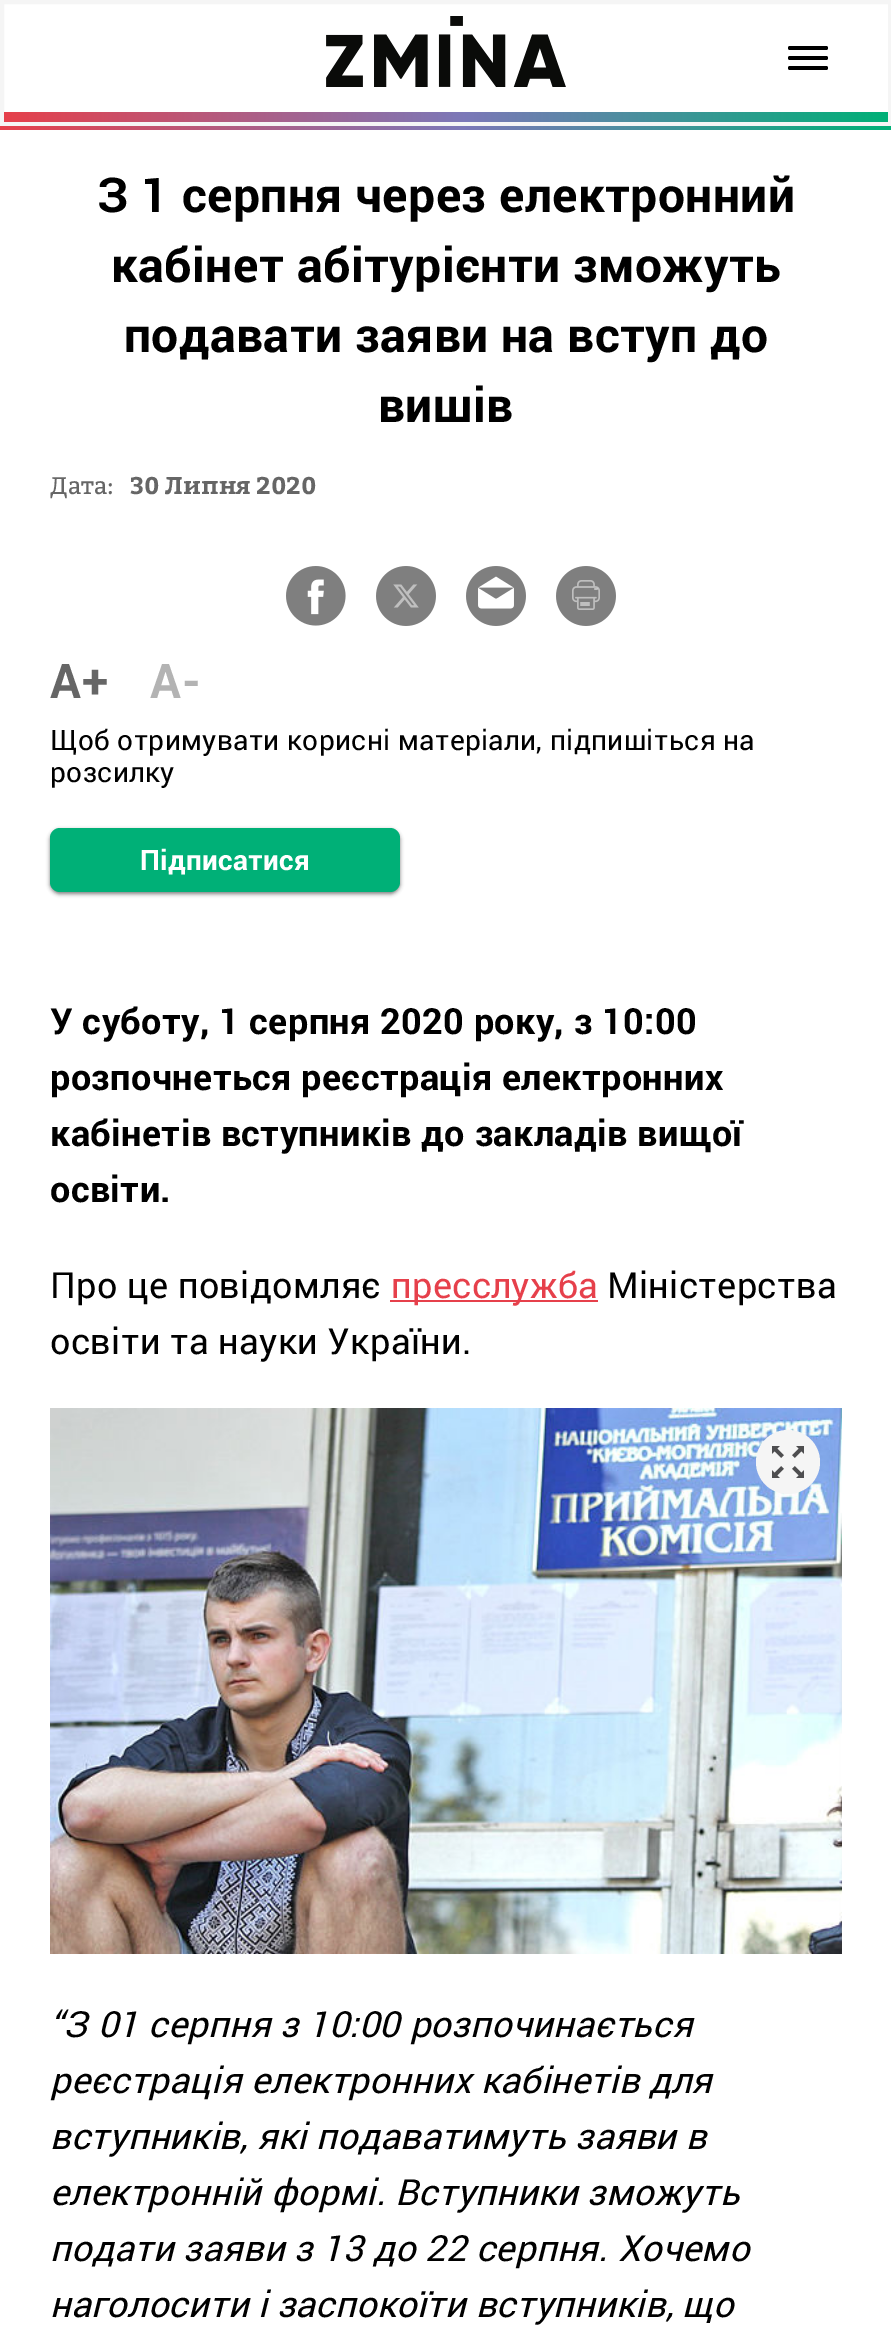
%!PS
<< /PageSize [891 2333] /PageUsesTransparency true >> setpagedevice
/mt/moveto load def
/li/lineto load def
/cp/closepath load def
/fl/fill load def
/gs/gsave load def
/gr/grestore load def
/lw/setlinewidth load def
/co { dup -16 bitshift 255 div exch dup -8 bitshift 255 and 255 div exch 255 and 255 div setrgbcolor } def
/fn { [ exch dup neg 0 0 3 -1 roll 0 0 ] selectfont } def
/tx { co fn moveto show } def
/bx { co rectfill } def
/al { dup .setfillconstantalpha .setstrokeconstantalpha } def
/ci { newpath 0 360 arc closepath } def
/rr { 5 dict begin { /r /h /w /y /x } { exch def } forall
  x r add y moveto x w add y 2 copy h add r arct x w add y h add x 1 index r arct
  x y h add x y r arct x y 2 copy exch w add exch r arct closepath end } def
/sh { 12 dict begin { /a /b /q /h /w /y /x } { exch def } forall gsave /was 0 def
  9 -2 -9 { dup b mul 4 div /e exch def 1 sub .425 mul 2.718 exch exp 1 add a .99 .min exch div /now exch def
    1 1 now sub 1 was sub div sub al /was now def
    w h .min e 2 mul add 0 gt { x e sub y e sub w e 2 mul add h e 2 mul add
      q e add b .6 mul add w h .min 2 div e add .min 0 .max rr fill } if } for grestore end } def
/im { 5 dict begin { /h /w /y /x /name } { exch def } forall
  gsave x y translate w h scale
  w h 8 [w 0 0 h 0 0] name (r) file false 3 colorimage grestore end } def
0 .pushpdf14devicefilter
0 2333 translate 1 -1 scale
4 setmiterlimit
0 0 891 2333 16#FFFFFF bx
16#F5F5F5 co
4 lw
2 2 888 122 rectstroke
(media/1.raw) 326 16 240 71 im
16#000000 co
788 56 40 4 2 rr fl
788 46 40 4 2 rr fl
788 66 40 4 2 rr fl
gs 4 112 mt 888 112 li 888 122 li 4 122 li cp clip newpath
<< /ShadingType 2 /ColorSpace /DeviceRGB /Coords [4 117 888 117] /Extend [true true] /Function << /FunctionType 3 /Domain [0 1] /Functions [<< /FunctionType 2 /Domain [0 1] /C0 [.902 .251 .294] /C1 [.486 .471 .722] /N 1 >> << /FunctionType 2 /Domain [0 1] /C0 [.486 .471 .722] /C1 [0 .69 .467] /N 1 >>] /Bounds [.52] /Encode [0 1 0 1] >> >> shfill gr
gs 0 126 mt 891 126 li 891 130 li 0 130 li cp clip newpath
<< /ShadingType 2 /ColorSpace /DeviceRGB /Coords [0 125 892 125] /Extend [true true] /Function << /FunctionType 3 /Domain [0 1] /Functions [<< /FunctionType 2 /Domain [0 1] /C0 [.902 .251 .294] /C1 [.486 .471 .722] /N 1 >> << /FunctionType 2 /Domain [0 1] /C0 [.486 .471 .722] /C1 [0 .69 .467] /N 1 >>] /Bounds [.52] /Encode [0 1 0 1] >> >> shfill gr
(media/2.raw) 286 566 60 60 im
(media/3.raw) 376 566 60 60 im
(media/4.raw) 466 566 60 60 im
(media/5.raw) 556 566 60 60 im
50 830 350 64 10 2 .5 sh
16#00B077 co
50 828 350 64 10 rr fl
390 1300 208 2 16#E6404B bx
(media/6.raw) 50 1408 792 546 im
16#F5F5F5 co
788 1462 32 ci fl
(media/7.raw) 772 1446 32 32 im
/Roboto-Bold 48 fn
16#000000 co
97 212 mt .4 0 (З 1 серпня через електронний) ashow
111 282 mt .4 0 (кабінет абітурієнти зможуть) ashow
124 352 mt .4 0 (подавати заяви на вступ до) ashow
378 422 mt .4 0 (вишів) ashow
(Дата:) 50 494 /Bitter-Regular 24 16#666666 tx
(30 Липня 2020) 130 494 /Bitter-Bold 24 16#666666 tx
/Roboto-Bold 48 fn
50 698 mt 1 0 (A+) ashow
16#B3B3B3 co
150 698 mt 1 0 (A-) ashow
/Roboto-Regular 28 fn
16#000000 co
50 750 mt .4 0 (Щоб отримувати корисні матеріали, підпишіться на) ashow
50 782 mt .4 0 (розсилку) ashow
/Roboto-Bold 28 fn
16#FFFFFF co
140 870 mt .25 0 (Підписатися) ashow
/Roboto-Bold 36 fn
16#000000 co
50 1034 mt .4 0 (У суботу, 1 серпня 2020 року, з 10:00) ashow
50 1090 mt .4 0 (розпочнеться реєстрація електронних) ashow
50 1146 mt .4 0 (кабінетів вступників до закладів вищої) ashow
50 1202 mt .4 0 (освіти.) ashow
/Roboto-Regular 36 fn
50 1298 mt .4 0 (Про це повідомляє) ashow
16#E6404B co
391 1298 mt .4 0 (пресслужба) ashow
16#000000 co
607 1298 mt .4 0 (Міністерства) ashow
50 1354 mt .4 0 (освіти та науки України.) ashow
/Roboto-Italic 36 fn
50 2037 mt .4 0 (“З 01 серпня з 10:00 розпочинається) ashow
50 2093 mt .4 0 (реєстрація електронних кабінетів для) ashow
50 2149 mt .4 0 (вступників, які подаватимуть заяви в) ashow
50 2205 mt .4 0 (електронній формі. Вступники зможуть) ashow
50 2261 mt .4 0 (подати заяви з 13 до 22 серпня. Хочемо) ashow
50 2317 mt .4 0 (наголосити і заспокоїти вступників, що) ashow
.poppdf14devicefilter showpage
